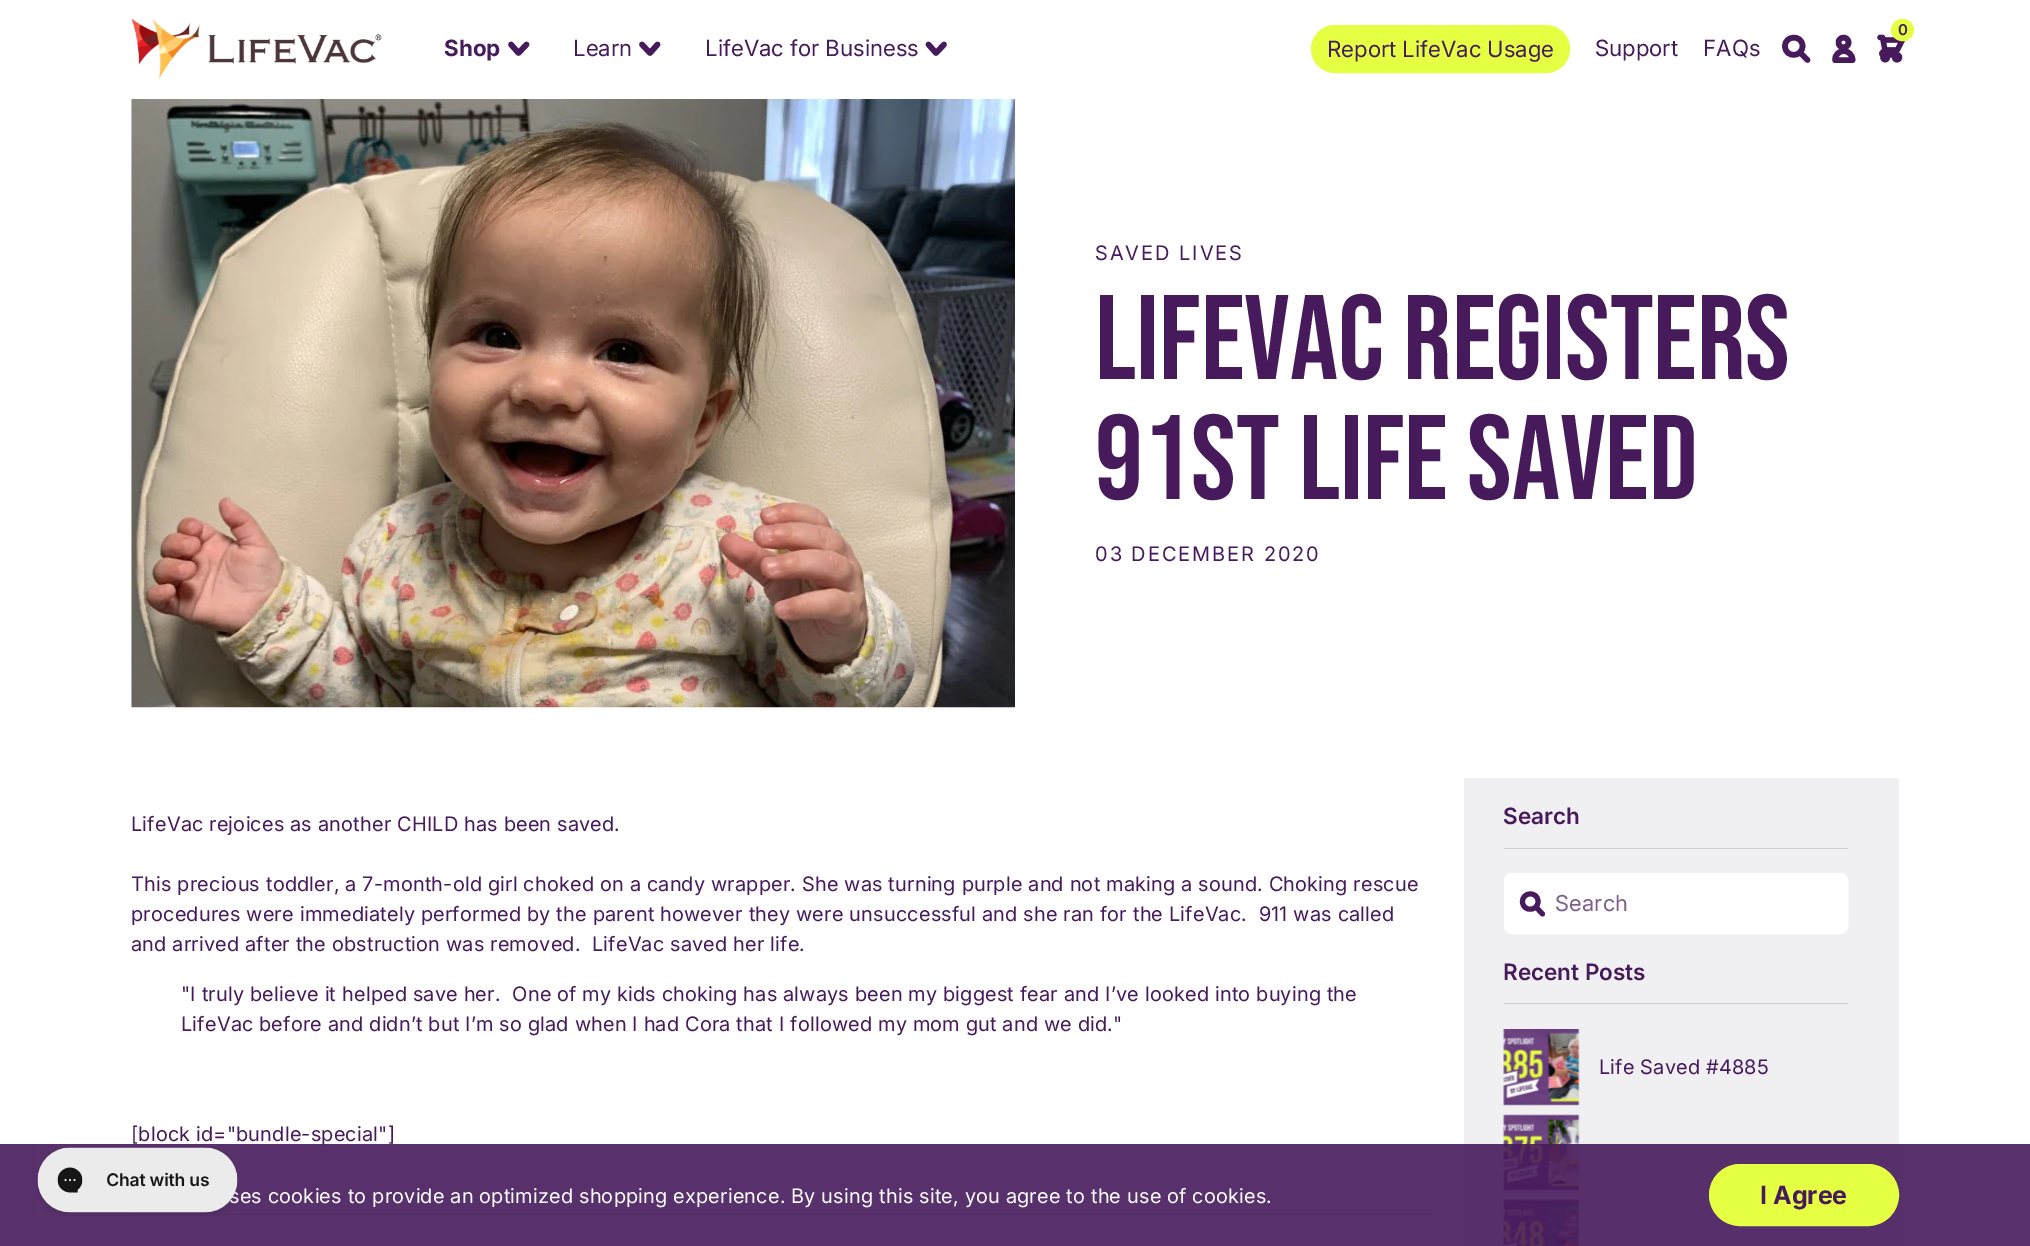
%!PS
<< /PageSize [2030 1246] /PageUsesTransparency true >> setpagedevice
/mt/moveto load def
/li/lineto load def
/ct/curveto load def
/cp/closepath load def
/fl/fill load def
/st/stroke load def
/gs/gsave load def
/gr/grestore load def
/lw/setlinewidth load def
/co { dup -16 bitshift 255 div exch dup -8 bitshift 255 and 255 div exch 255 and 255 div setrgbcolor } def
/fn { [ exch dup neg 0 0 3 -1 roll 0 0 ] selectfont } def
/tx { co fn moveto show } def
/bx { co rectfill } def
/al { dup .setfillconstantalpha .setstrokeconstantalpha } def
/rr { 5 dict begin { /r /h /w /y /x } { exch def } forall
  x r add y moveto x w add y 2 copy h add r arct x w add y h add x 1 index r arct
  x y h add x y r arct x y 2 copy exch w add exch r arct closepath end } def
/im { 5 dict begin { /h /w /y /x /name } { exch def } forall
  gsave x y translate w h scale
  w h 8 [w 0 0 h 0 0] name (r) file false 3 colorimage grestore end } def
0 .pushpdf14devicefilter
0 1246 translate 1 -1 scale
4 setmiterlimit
0 0 2030 1246 16#FFFFFF bx
(media/1.raw) 131 18 251 61 im
16#461A5B co
5.6 lw
1 setlinecap
1 setlinejoin
526.5 44.5 mt 518.5 53 li 511 44.5 li st
657.5 44.5 mt 650 53 li 642 44.5 li st
944 44.5 mt 936 53 li 928.5 44.5 li st
(media/2.raw) 1877 34 29 29 im
16#E5FF42 co
1891.5 19.5 22 21 10.5 rr gs fl gr
1 lw
0 setlinecap
0 setlinejoin
st
1311.5 25.5 258 47 23.5 rr gs fl gr
st
16#461A5B co
5.6 lw
1 setlinecap
1 setlinejoin
1807.5 60 mt 1800 52.5 li 1802.5 46 mt 1802.5 57.5 1785.5 58 1785 46.5 ct 1784.5 35 1802.5 34.5 1802.5 46 ct cp st
1848.5 42.5 mt 1848.5 49 1838.5 49 1838.5 42.5 ct 1838.5 36 1848.5 36 1848.5 42.5 ct cp 1843.5 51 mt 1839 51 1835 55 1835 60 ct 1852.5 60 li 1852.5 55 1848.5 51 1843.5 51 ct cp st
(media/3.raw) 131 99 884 609 im
131 1214 1302 1 16#D9D9D9 bx
1464 778 435 468 16#F0EFF1 bx
1504 848 344 1 16#D1D0D2 bx
16#FFFFFF co
1504.5 873.5 343 60 7.5 rr gs fl gr
1 lw
0 setlinecap
0 setlinejoin
st
16#461A5B co
5 lw
1 setlinecap
1 setlinejoin
1542.5 914 mt 1536 907 li 1538 901.5 mt 1538 911.5 1523 912 1522.5 902 ct 1522 891.5 1538 891 1538 901.5 ct cp st
1504 1003 344 1 16#D1D0D2 bx
(media/4.raw) 1503 1029 77 77 im
(media/5.raw) 1503 1114 77 77 im
(media/6.raw) 1503 1199 77 47 im
(Shop) 444 56 /Inter-Bold 22.4 16#461A5B tx
(Learn) 573 56 /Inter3-Regular 22.4 16#461A5B tx
(LifeVac for Business) 705 56 /Inter3-Regular 22.4 16#461A5B tx
(0) 1898 35 /Inter-SemiBold 15 16#461A5B tx
(Report LifeVac Usage) 1327 57 /Inter3-Regular 22.4 16#461A5B tx
(Support) 1595 56 /Inter3-Regular 22.4 16#461A5B tx
1703 56 mt .2 0 (FAQs) ashow
/Inter-Regular 20 fn
1095 260 mt 2 0 (SAVED LIVES) ashow
(LifeVac Registers) 1095 379 /BebasNeue-Regular 120 16#461A5B tx
(91st Life Saved) 1095 499 /BebasNeue-Regular 120 16#461A5B tx
/Inter-Regular 20 fn
1095 561 mt 2 0 (03 DECEMBER 2020) ashow
131 831 mt .2 0 (LifeVac rejoices as another CHILD has been saved.) ashow
131 891 mt .2 0 (This precious toddler, a 7-month-old girl choked on a candy wrapper. She was turning purple and not making a sound. Choking rescue) ashow
131 921 mt .2 0 (procedures were immediately performed by the parent however they were unsuccessful and she ran for the LifeVac.  911 was called) ashow
131 951 mt .2 0 (and arrived after the obstruction was removed.  LifeVac saved her life.) ashow
181 1001 mt .2 0 ("I truly believe it helped save her.  One of my kids choking has always been my biggest fear and I’ve looked into buying the) ashow
181 1031 mt .2 0 (LifeVac before and didn’t but I’m so glad when I had Cora that I followed my mom gut and we did.") ashow
131 1141 mt .2 0 ([block id="bundle-special"]) ashow
(Search) 1503 824 /Inter-SemiBold 22.5 16#461A5B tx
/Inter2-Regular 22 fn
16#7E5F8C co
1555 911 mt .2 0 (Search) ashow
(Recent Posts) 1503 980 /Inter-SemiBold 22.5 16#461A5B tx
/Inter-Regular 20 fn
1599 1074 mt .2 0 (Life Saved #4885) ashow
0.9 al
0 1144 2030 102 16#461A5B bx
1 al
16#FFFFFF co
229 1203 mt .2 0 (ses cookies to provide an optimized shopping experience. By using this site, you agree to the use of cookies.) ashow
(media/7.raw) 36 1147 203 69 im
16#E5FF42 co
1709.5 1164.5 189 61 30.5 rr gs fl gr
1 lw
0 setlinecap
0 setlinejoin
st
(I Agree) 1760 1204 /Inter-Bold 25 16#461A5B tx
.poppdf14devicefilter showpage
